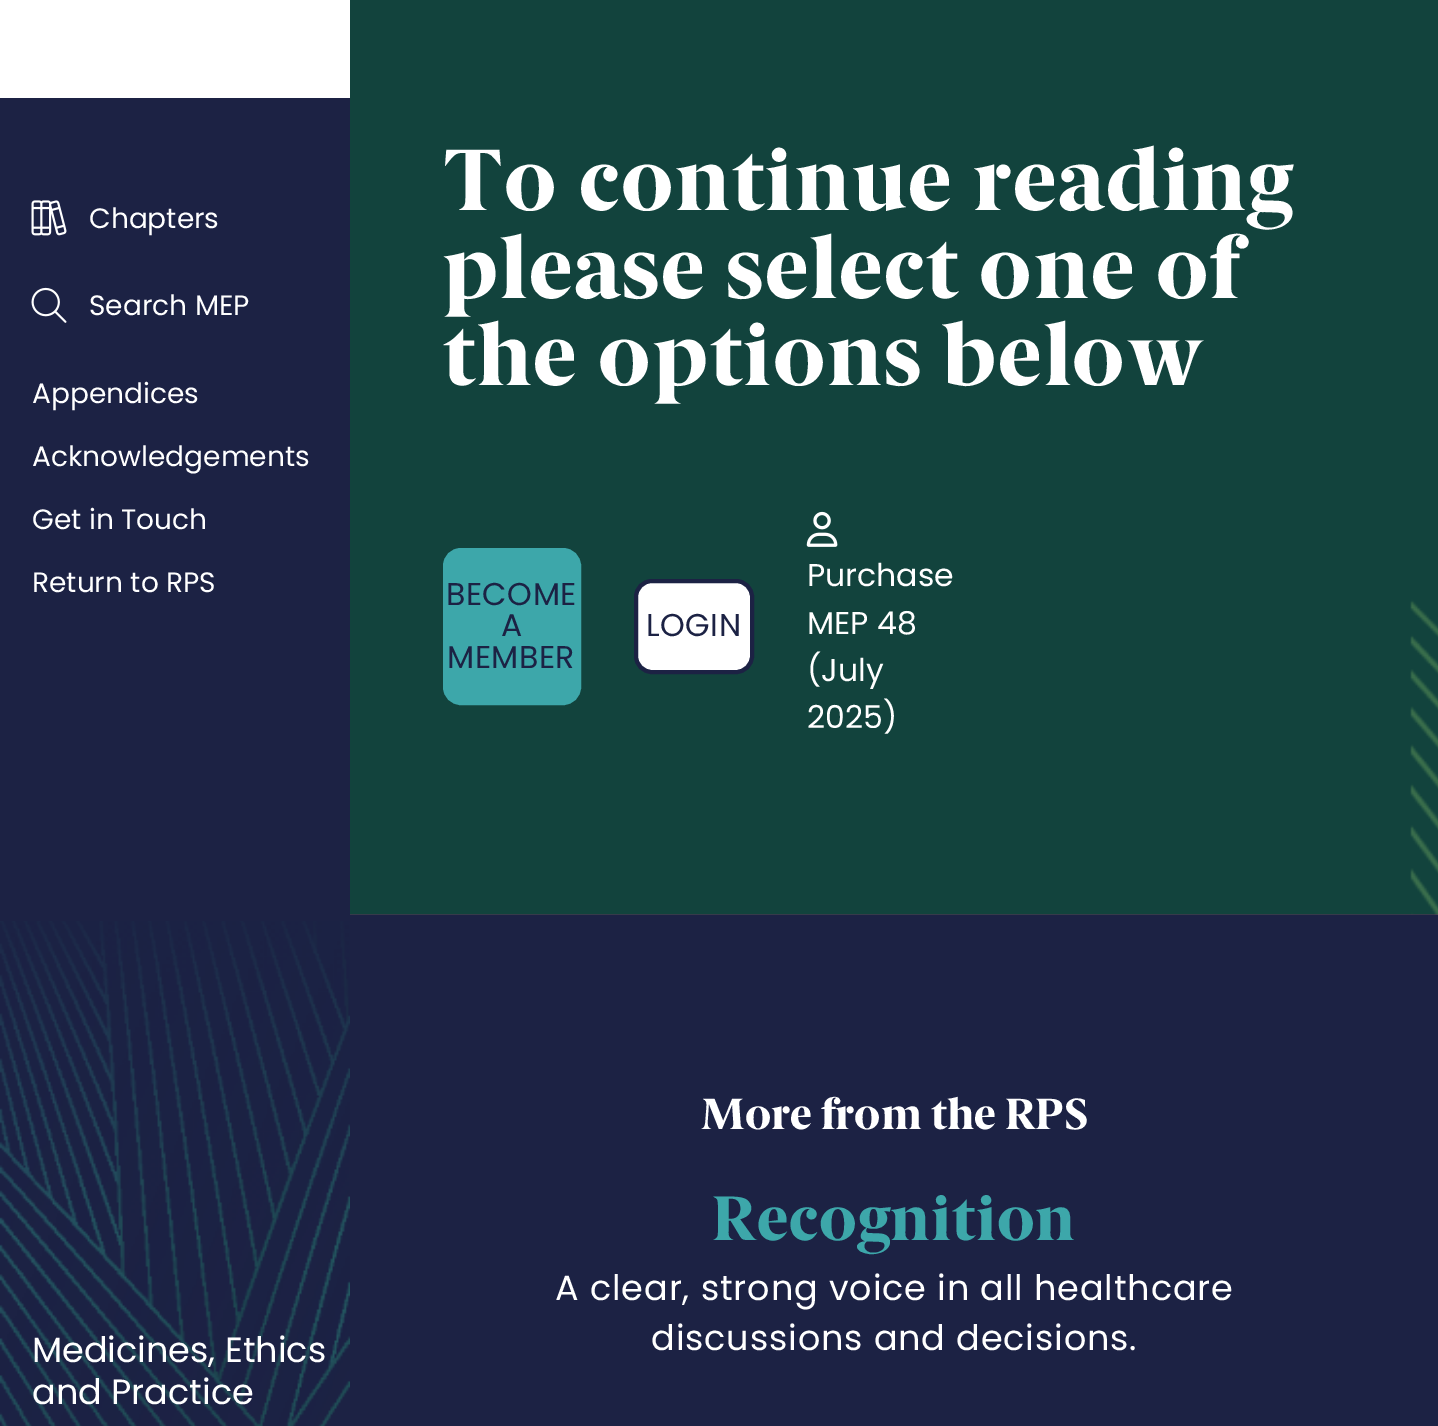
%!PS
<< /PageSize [1438 1426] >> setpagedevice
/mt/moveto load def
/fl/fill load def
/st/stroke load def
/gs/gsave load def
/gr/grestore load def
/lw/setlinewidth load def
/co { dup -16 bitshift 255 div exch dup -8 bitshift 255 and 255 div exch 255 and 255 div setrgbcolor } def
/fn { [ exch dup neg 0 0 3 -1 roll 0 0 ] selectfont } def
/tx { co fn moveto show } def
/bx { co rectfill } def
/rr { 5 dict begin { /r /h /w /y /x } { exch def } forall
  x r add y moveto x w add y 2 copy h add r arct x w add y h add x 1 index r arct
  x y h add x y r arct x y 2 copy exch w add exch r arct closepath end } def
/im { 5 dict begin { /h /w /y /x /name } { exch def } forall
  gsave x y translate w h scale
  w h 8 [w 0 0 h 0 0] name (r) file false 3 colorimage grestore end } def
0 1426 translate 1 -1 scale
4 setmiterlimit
0 0 1438 1426 16#FFFFFF bx
0 98 350 823 16#1C2244 bx
(media/1.raw) 0 921 350 505 im
(media/2.raw) 31 200 36 36 im
(media/3.raw) 31 287 36 36 im
350 914 1088 1 16#65315C bx
(media/4.raw) 350 0 1088 915 im
16#3DA7AA co
445 550 134 153 16 rr gs fl gr
4 lw
st
16#FFFFFF co
636 581 116 91 16 rr gs fl gr
16#1C2244 co
st
(media/5.raw) 806 511 32 36 im
350 915 1088 511 16#1C2244 bx
(Chapters) 89 228 /Poppins-Regular 28 16#FFFFFF tx
(Search MEP) 89 315 /Poppins-Regular 28 16#FFFFFF tx
(Appendices) 32 403 /Poppins-Regular 28 16#FFFFFF tx
(Acknowledgements) 32 466 /Poppins-Regular 28 16#FFFFFF tx
(Get in Touch) 32 529 /Poppins-Regular 28 16#FFFFFF tx
(Return to RPS) 32 592 /Poppins-Regular 28 16#FFFFFF tx
(Medicines, Ethics) 32 1362 /Poppins-Regular 35 16#FFFFFF tx
(and Practice) 32 1404 /Poppins-Regular 35 16#FFFFFF tx
/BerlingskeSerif-ExtraBold 87.5 fn
443 210 mt 1.75 0 (To continue reading) ashow
443 298 mt 1.75 0 (please select one of) ashow
443 385 mt 1.75 0 (the options below) ashow
/Poppins-Regular 31.5 fn
16#1C2244 co
446 605 mt .5 0 (BECOME) ashow
501 636 mt .5 0 (A) ashow
447 668 mt .5 0 (MEMBER) ashow
646 636 mt .5 0 (LOGIN) ashow
(Purchase) 807 586 /Poppins-Regular 31.5 16#FFFFFF tx
(MEP 48) 807 634 /Poppins-Regular 31.5 16#FFFFFF tx
(\(July) 807 681 /Poppins-Regular 31.5 16#FFFFFF tx
(2025\)) 807 728 /Poppins-Regular 31.5 16#FFFFFF tx
(More from the RPS) 701 1129 /BerlingskeSerif-ExtraBold 43.75 16#FFFFFF tx
/BerlingskeSerif-ExtraBold 63 fn
16#3DA7AA co
712 1240 mt .9 0 (Recognition) ashow
/Poppins-Regular 35 fn
16#FFFFFF co
555 1300 mt .9 0 (A clear, strong voice in all healthcare) ashow
651 1350 mt .9 0 (discussions and decisions.) ashow
showpage
